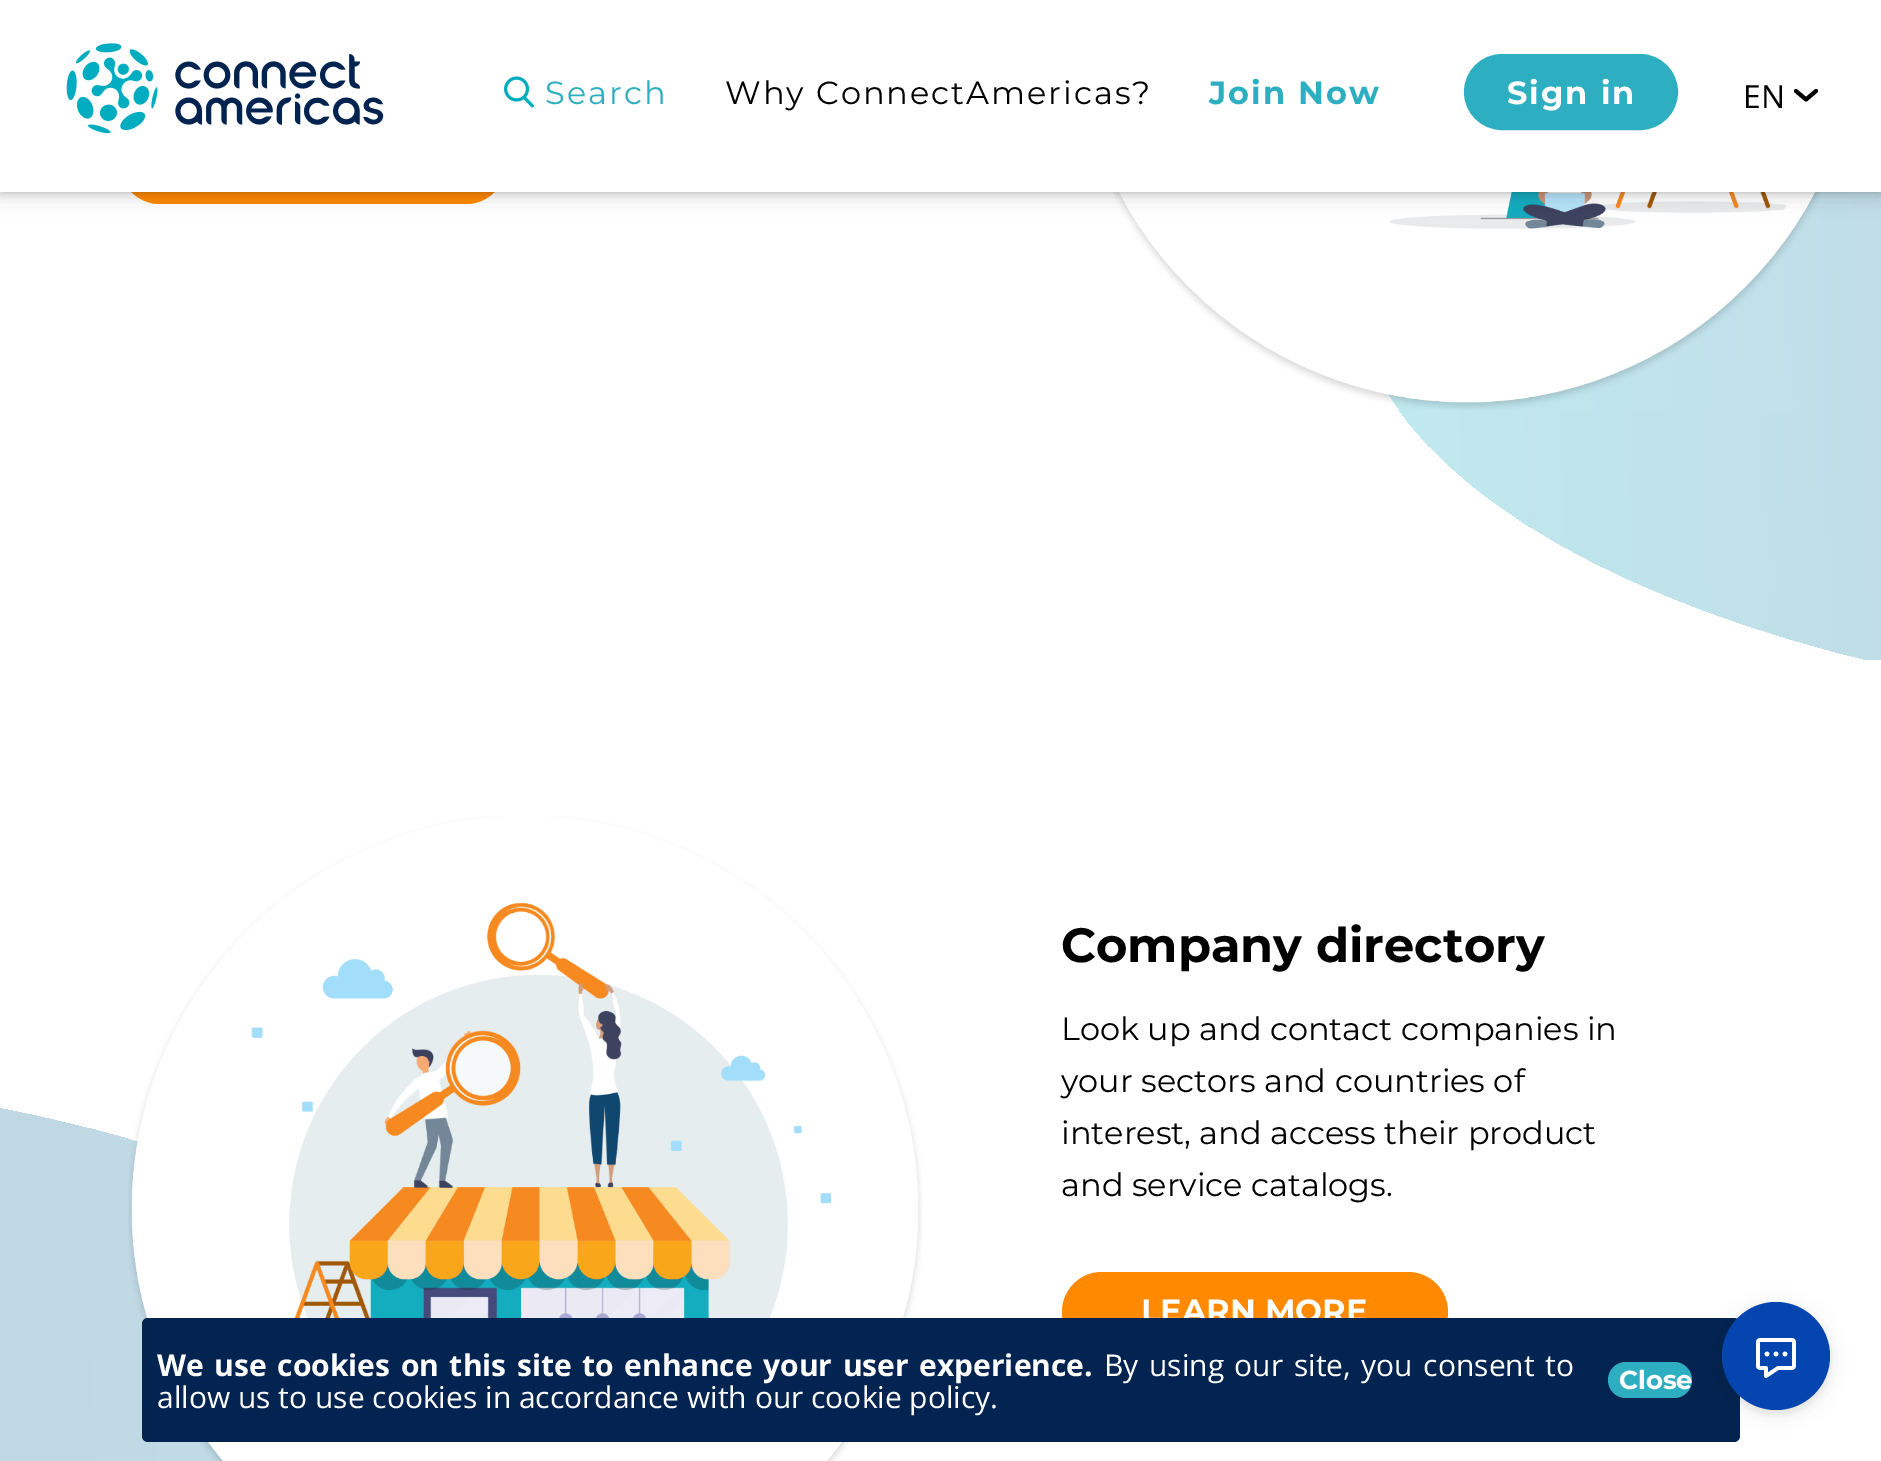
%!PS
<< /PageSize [1881 1461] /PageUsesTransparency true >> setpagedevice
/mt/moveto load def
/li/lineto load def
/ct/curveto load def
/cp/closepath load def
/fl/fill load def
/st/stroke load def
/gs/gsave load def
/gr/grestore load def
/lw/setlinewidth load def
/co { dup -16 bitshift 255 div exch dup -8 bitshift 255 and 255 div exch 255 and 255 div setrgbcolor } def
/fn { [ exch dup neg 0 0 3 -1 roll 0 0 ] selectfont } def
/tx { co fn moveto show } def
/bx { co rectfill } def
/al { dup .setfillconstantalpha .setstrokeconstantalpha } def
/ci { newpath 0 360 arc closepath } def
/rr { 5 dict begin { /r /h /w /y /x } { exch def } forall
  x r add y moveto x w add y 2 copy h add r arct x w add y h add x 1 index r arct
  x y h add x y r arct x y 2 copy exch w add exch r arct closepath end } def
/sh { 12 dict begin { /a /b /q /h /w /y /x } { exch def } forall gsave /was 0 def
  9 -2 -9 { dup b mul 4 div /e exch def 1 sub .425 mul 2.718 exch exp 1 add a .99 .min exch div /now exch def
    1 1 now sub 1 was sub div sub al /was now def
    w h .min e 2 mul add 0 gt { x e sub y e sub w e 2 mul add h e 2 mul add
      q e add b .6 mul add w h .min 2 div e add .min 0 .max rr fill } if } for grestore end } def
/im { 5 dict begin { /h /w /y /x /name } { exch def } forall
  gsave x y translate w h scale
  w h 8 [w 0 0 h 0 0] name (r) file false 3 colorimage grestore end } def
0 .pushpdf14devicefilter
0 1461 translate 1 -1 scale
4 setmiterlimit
0 0 1881 1461 16#FFFFFF bx
gs
1284 0 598 660 rectclip
gs 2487 -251 mt 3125 -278 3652 -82 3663 187 ct 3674 455 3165 693 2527 719 ct 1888 745 1362 549 1351 281 ct 1340 13 1849 -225 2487 -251 ct cp clip newpath
<< /ShadingType 2 /ColorSpace /DeviceRGB /Coords [1351 281 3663 187] /Extend [true true] /Function << /FunctionType 3 /Domain [0 1] /Functions [<< /FunctionType 2 /Domain [0 1] /C0 [.753 .922 .941] /C1 [.753 .906 .933] /N 1 >> << /FunctionType 2 /Domain [0 1] /C0 [.753 .906 .933] /C1 [.753 .851 .902] /N 1 >> << /FunctionType 2 /Domain [0 1] /C0 [.753 .851 .902] /C1 [.753 .808 .875] /N 1 >> << /FunctionType 2 /Domain [0 1] /C0 [.753 .808 .875] /C1 [.753 .776 .859] /N 1 >> << /FunctionType 2 /Domain [0 1] /C0 [.753 .776 .859] /C1 [.753 .761 .847] /N 1 >> << /FunctionType 2 /Domain [0 1] /C0 [.753 .761 .847] /C1 [.753 .753 .843] /N 1 >>] /Bounds [.06 .3 .52 .72 .88] /Encode [0 1 0 1 0 1 0 1 0 1 0 1] >> >> shfill gr
gr
16#FF8900 co
120 124 386 80 40 rr fl
(media/3.raw) 1113 192 708 218 im
16#000000 co
0 2 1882 192 0 2 .1 sh
0 4 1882 192 0 10 .16 sh
0 0 1881 192 16#FFFFFF bx
(media/1.raw) 66 43 318 91 im
(media/2.raw) 504 76 30 32 im
16#2EAEC1 co
1465 55 212 74 37 rr gs fl gr
2 lw
st
16#000000 co
4 lw
1 setlinecap
1 setlinejoin
1796 91 mt 1806 99.5 li 1816 91 li st
gs -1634 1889 mt -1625 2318 -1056 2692 -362 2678 ct 251 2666 819 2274 878 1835 ct 932 1442 286 1057 -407 1072 ct -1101 1087 -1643 1461 -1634 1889 ct cp clip newpath
<< /ShadingType 2 /ColorSpace /DeviceRGB /Coords [881 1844 -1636 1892] /Extend [true true] /Function << /FunctionType 3 /Domain [0 1] /Functions [<< /FunctionType 2 /Domain [0 1] /C0 [.753 .922 .937] /C1 [.753 .906 .929] /N 1 >> << /FunctionType 2 /Domain [0 1] /C0 [.753 .906 .929] /C1 [.753 .851 .898] /N 1 >> << /FunctionType 2 /Domain [0 1] /C0 [.753 .851 .898] /C1 [.753 .808 .875] /N 1 >> << /FunctionType 2 /Domain [0 1] /C0 [.753 .808 .875] /C1 [.753 .776 .859] /N 1 >> << /FunctionType 2 /Domain [0 1] /C0 [.753 .776 .859] /C1 [.753 .757 .847] /N 1 >> << /FunctionType 2 /Domain [0 1] /C0 [.753 .757 .847] /C1 [.753 .753 .843] /N 1 >>] /Bounds [.06 .3 .52 .72 .88] /Encode [0 1 0 1 0 1 0 1 0 1 0 1] >> >> shfill gr
(media/4.raw) 128 816 794 645 im
16#FF8900 co
1062 1272 386 80 40 rr fl
/Montserrat-Regular 32 fn
16#2EAEC1 co
545 104 mt 2 0 (Search) ashow
16#000000 co
725 104 mt 2 0 (Why ConnectAmericas?) ashow
/Montserrat-Bold 32 fn
16#2EAEC1 co
1209 104 mt 2 0 (Join Now) ashow
16#FFFFFF co
1507 104 mt 2 0 (Sign in) ashow
(EN) 1743 108 /OpenSans-Regular 32 16#000000 tx
(Company directory) 1061 962 /Montserrat-Bold 48 16#000000 tx
(Look up and contact companies in) 1061 1040 /Montserrat-Regular 32 16#000000 tx
(your sectors and countries of) 1061 1092 /Montserrat-Regular 32 16#000000 tx
(interest, and access their product) 1061 1144 /Montserrat-Regular 32 16#000000 tx
(and service catalogs.) 1061 1196 /Montserrat-Regular 32 16#000000 tx
(LEARN MORE) 1141 1322 /Montserrat-Bold 32 16#FFFFFF tx
16#032350 co
142 1318 1598 124 6 rr fl
/OpenSans-Bold 30 fn
16#FFFFFF co
157 1376 mt 2.75 0 32 (We use cookies on this site to enhance your user experience.) widthshow
/OpenSans-Regular 30 fn
1104 1376 mt 2.75 0 32 (By using our site, you consent to) widthshow
(allow us to use cookies in accordance with our cookie policy.) 157 1408 /OpenSans-Regular 30 16#FFFFFF tx
16#2EAEC1 co
1608 1362 84 36 18 rr fl
(Close) 1619 1389 /Montserrat-Bold 26 16#FFFFFF tx
16#000000 co
1722 1306 108 108 54 4 .08 sh
1722 1306 108 108 54 12 .06 sh
16#0445AF co
1776 1356 54 ci fl
(media/5.raw) 1756 1338 40 40 im
.poppdf14devicefilter showpage
